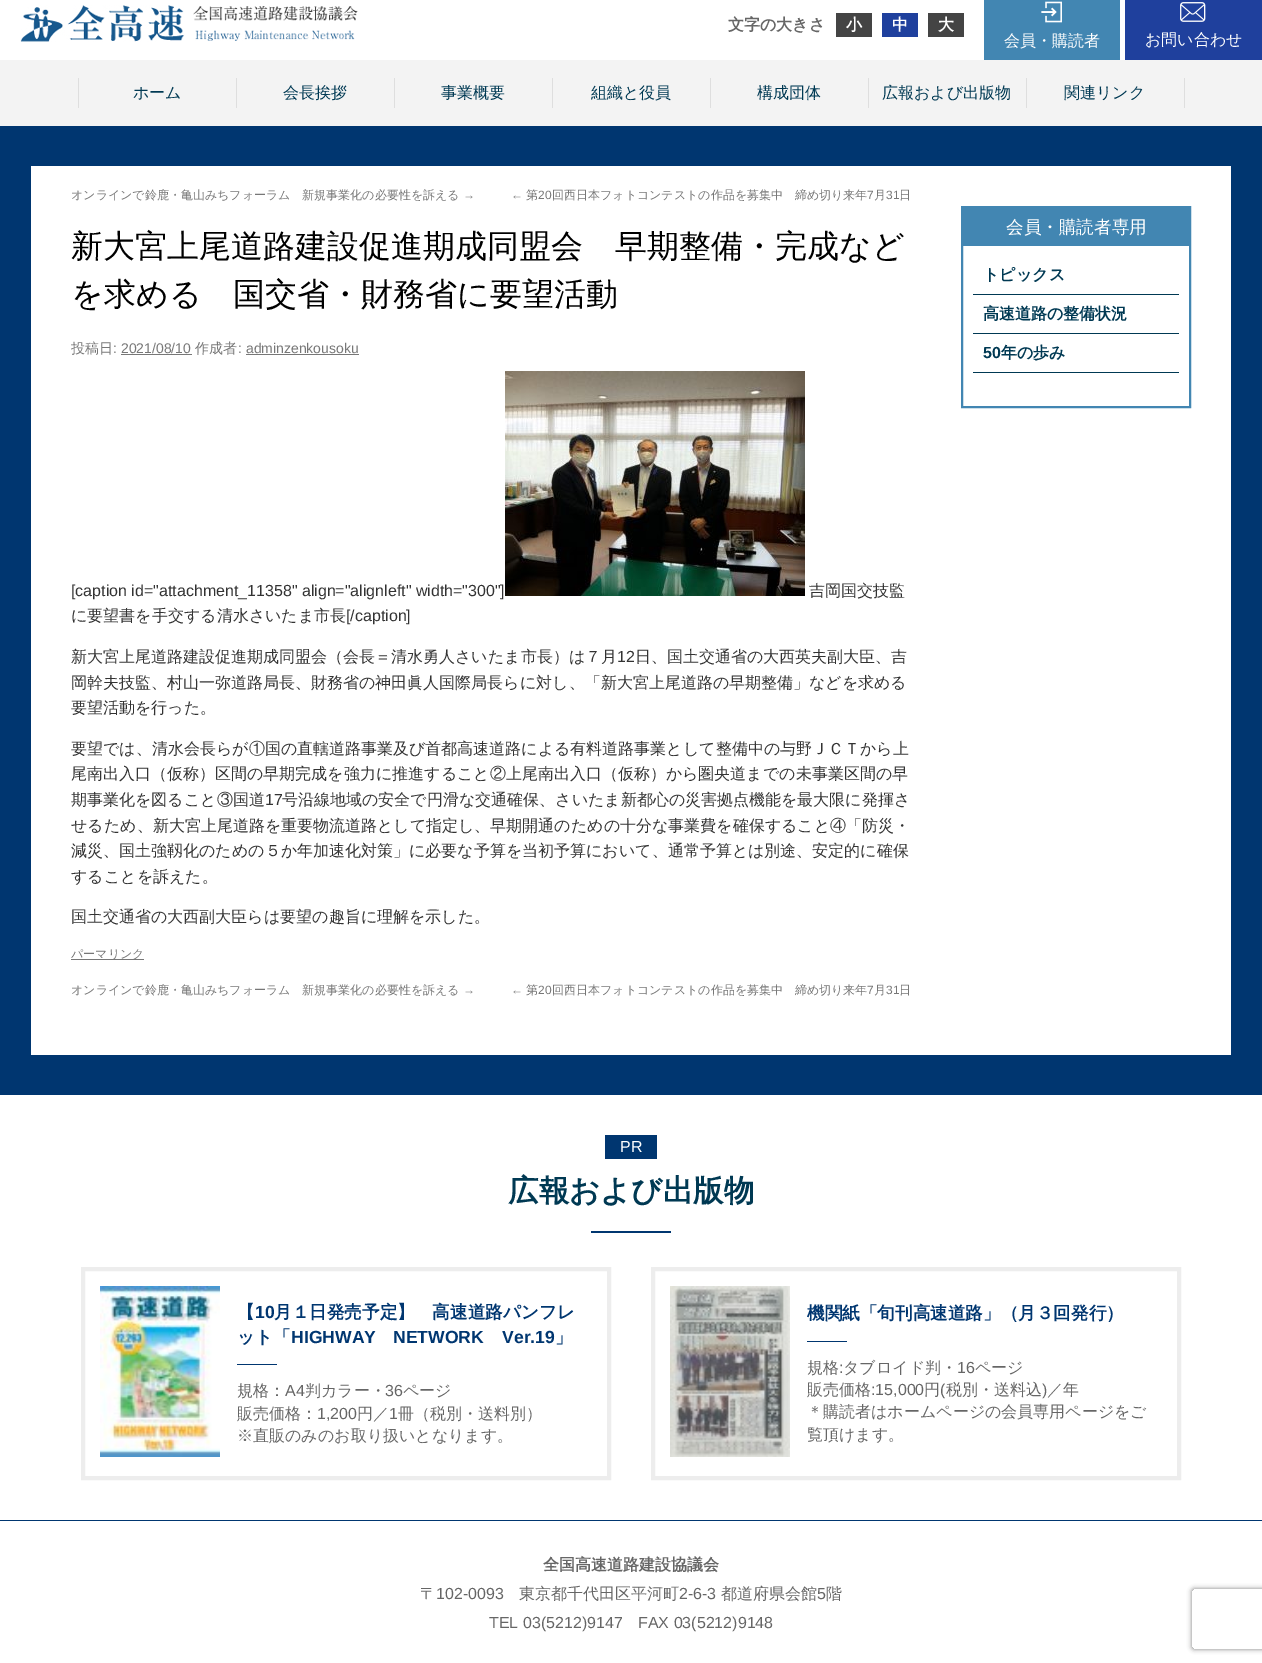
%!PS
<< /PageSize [1262 1663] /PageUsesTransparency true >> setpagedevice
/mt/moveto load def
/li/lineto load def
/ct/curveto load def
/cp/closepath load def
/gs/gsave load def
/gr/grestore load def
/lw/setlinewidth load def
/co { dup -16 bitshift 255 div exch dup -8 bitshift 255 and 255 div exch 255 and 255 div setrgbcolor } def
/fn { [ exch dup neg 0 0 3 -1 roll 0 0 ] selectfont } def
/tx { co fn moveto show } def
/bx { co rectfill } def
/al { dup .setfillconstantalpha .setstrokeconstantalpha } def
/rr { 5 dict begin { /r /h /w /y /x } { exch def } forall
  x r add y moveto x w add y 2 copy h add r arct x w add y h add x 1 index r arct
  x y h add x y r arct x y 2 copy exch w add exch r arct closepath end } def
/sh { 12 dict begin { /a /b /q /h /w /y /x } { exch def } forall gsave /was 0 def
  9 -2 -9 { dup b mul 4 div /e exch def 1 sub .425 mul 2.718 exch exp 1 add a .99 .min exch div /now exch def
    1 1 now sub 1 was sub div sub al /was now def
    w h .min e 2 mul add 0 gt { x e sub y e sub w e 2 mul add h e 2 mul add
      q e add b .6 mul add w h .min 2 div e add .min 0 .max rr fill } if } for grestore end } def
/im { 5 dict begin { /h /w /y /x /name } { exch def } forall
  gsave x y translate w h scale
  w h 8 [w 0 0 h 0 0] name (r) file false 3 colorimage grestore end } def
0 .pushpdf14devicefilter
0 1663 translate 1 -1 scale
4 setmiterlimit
0 0 1262 1663 16#FFFFFF bx
(media/1.raw) 20 5 338 37 im
836 13 36 24 16#444444 bx
882 13 36 24 16#1F409D bx
928 13 36 24 16#444444 bx
984 0 136 60 16#4286B2 bx
(media/2.raw) 1041 1 21 22 im
1125 0 137 60 16#1F409D bx
(media/3.raw) 1180 2 26 20 im
0 60 1262 66 16#F3F3F3 bx
78 78 1 30 16#DEDEDE bx
236 78 1 30 16#DEDEDE bx
394 78 1 30 16#DEDEDE bx
552 78 1 30 16#DEDEDE bx
710 78 1 30 16#DEDEDE bx
868 78 1 30 16#DEDEDE bx
1184 78 1 30 16#DEDEDE bx
1026 78 1 30 16#DEDEDE bx
0 126 1262 969 16#003670 bx
31 166 1200 889 16#FFFFFF bx
121 354 71 1 16#777777 bx
246 354 113 1 16#777777 bx
(media/4.raw) 505 371 300 225 im
71 959 73 1 16#777777 bx
16#4286B2 co
2 lw
962 207 228 200 rectstroke
963 208 226 38 16#4286B2 bx
973 294 206 1 16#003953 bx
973 333 206 1 16#003953 bx
973 372 206 1 16#003953 bx
605 1135 52 24 16#003670 bx
591 1231 80 2 16#003670 bx
16#EDEDED co
4 lw
83 1269 526 209 rectstroke
(media/5.raw) 100 1286 120 171 im
237 1364 40 1 16#003670 bx
16#EDEDED co
653 1269 526 209 rectstroke
(media/6.raw) 670 1286 120 171 im
807 1341 40 1 16#003670 bx
0 1520 1262 1 16#003670 bx
gs
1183 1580 mt 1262 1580 li 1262 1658 li 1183 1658 li cp 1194 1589 mt 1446 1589 li 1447 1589 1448 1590 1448 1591 ct 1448 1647 li 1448 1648 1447 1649 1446 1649 ct 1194 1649 li 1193 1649 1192 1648 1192 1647 ct 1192 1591 li 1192 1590 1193 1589 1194 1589 ct cp eoclip newpath
16#808080 co
1192 1589 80 60 2 2.5 1 sh
gr
(文字の大きさ) 728 30 /WenQuanYiZenHei-Bold 16 16#666666 tx
(小) 846 30 /WenQuanYiZenHei-Bold 16 16#FFFFFF tx
(中) 892 30 /WenQuanYiZenHei-Bold 16 16#FFFFFF tx
(大) 938 30 /WenQuanYiZenHei-Bold 16 16#FFFFFF tx
(会員・購読者) 1004 46 /WenQuanYiZenHei-Medium 16 16#FFFFFF tx
(お問い合わせ) 1145 45 /WenQuanYiZenHei-Medium 16 16#FFFFFF tx
(ホーム) 133 98 /WenQuanYiZenHei-Medium 16 16#003953 tx
(会長挨拶) 283 98 /WenQuanYiZenHei-Medium 16 16#003953 tx
(事業概要) 441 98 /WenQuanYiZenHei-Medium 16 16#003953 tx
(組織と役員) 591 98 /WenQuanYiZenHei-Medium 16 16#003953 tx
(構成団体) 757 98 /WenQuanYiZenHei-Medium 16 16#003953 tx
(広報および出版物) 882 98 /WenQuanYiZenHei-Medium 16 16#003953 tx
(関連リンク) 1064 98 /WenQuanYiZenHei-Medium 16 16#003953 tx
(オンラインで鈴鹿・亀山みちフォーラム　新規事業化の必要性を訴える) 71 199 /WenQuanYiZenHei-Medium 12 16#777777 tx
(→) 463 199 /LiberationSans-Regular 12 16#777777 tx
(←) 511 199 /LiberationSans-Regular 12 16#777777 tx
(第) 526 199 /WenQuanYiZenHei-Medium 12 16#777777 tx
(20) 538 199 /LiberationSans-Regular 12 16#777777 tx
(回西日本フォトコンテストの作品を募集中　締め切り来年) 552 199 /WenQuanYiZenHei-Medium 12 16#777777 tx
(7) 867 199 /LiberationSans-Regular 12 16#777777 tx
(月) 874 199 /WenQuanYiZenHei-Medium 12 16#777777 tx
(31) 886 199 /LiberationSans-Regular 12 16#777777 tx
(日) 899 199 /WenQuanYiZenHei-Medium 12 16#777777 tx
(新大宮上尾道路建設促進期成同盟会　早期整備・完成など) 71 257 /WenQuanYiZenHei-Medium 32 16#000000 tx
(を求める　国交省・財務省に要望活動) 71 305 /WenQuanYiZenHei-Medium 32 16#000000 tx
(投稿日) 71 353 /WenQuanYiZenHei-Medium 14 16#777777 tx
(: 2021/08/10) 113 353 /LiberationSans-Regular 14 16#777777 tx
(作成者) 195 353 /WenQuanYiZenHei-Medium 14 16#777777 tx
(: adminzenkousoku) 238 353 /LiberationSans-Regular 14 16#777777 tx
([caption id="attachment_11358" align="alignleft" width="300"]) 71 596 /LiberationSans-Regular 16 16#333333 tx
(吉岡国交技監) 809 596 /WenQuanYiZenHei-Medium 16 16#333333 tx
(に要望書を手交する清水さいたま市長) 71 621 /WenQuanYiZenHei-Medium 16 16#333333 tx
([/caption]) 346 621 /LiberationSans-Regular 16 16#333333 tx
(新大宮上尾道路建設促進期成同盟会（会長＝清水勇人さいたま市長）は７月) 71 662 /WenQuanYiZenHei-Medium 16 16#333333 tx
(12) 617 662 /LiberationSans-Regular 16 16#333333 tx
(日、国土交通省の大西英夫副大臣、吉) 635 662 /WenQuanYiZenHei-Medium 16 16#333333 tx
(岡幹夫技監、村山一弥道路局長、財務省の神田眞人国際局長らに対し、「新大宮上尾道路の早期整備」などを求める) 71 688 /WenQuanYiZenHei-Medium 16 16#333333 tx
(要望活動を行った。) 71 713 /WenQuanYiZenHei-Medium 16 16#333333 tx
(要望では、清水会長らが①国の直轄道路事業及び首都高速道路による有料道路事業として整備中の与野ＪＣＴから上) 71 754 /WenQuanYiZenHei-Medium 16 16#333333 tx
(尾南出入口（仮称）区間の早期完成を強力に推進すること②上尾南出入口（仮称）から圏央道までの未事業区間の早) 71 779 /WenQuanYiZenHei-Medium 16 16#333333 tx
(期事業化を図ること③国道) 71 805 /WenQuanYiZenHei-Medium 16 16#333333 tx
(17) 265 805 /LiberationSans-Regular 16 16#333333 tx
(号沿線地域の安全で円滑な交通確保、さいたま新都心の災害拠点機能を最大限に発揮さ) 282 805 /WenQuanYiZenHei-Medium 16 16#333333 tx
(せるため、新大宮上尾道路を重要物流道路として指定し、早期開通のための十分な事業費を確保すること④「防災・) 71 831 /WenQuanYiZenHei-Medium 16 16#333333 tx
(減災、国土強靱化のための５か年加速化対策」に必要な予算を当初予算において、通常予算とは別途、安定的に確保) 71 856 /WenQuanYiZenHei-Medium 16 16#333333 tx
(することを訴えた。) 71 882 /WenQuanYiZenHei-Medium 16 16#333333 tx
(国土交通省の大西副大臣らは要望の趣旨に理解を示した。) 71 922 /WenQuanYiZenHei-Medium 16 16#333333 tx
(パーマリンク) 71 958 /WenQuanYiZenHei-Medium 12 16#777777 tx
(オンラインで鈴鹿・亀山みちフォーラム　新規事業化の必要性を訴える) 71 994 /WenQuanYiZenHei-Medium 12 16#777777 tx
(→) 463 994 /LiberationSans-Regular 12 16#777777 tx
(←) 511 994 /LiberationSans-Regular 12 16#777777 tx
(第) 526 994 /WenQuanYiZenHei-Medium 12 16#777777 tx
(20) 538 994 /LiberationSans-Regular 12 16#777777 tx
(回西日本フォトコンテストの作品を募集中　締め切り来年) 552 994 /WenQuanYiZenHei-Medium 12 16#777777 tx
(7) 867 994 /LiberationSans-Regular 12 16#777777 tx
(月) 874 994 /WenQuanYiZenHei-Medium 12 16#777777 tx
(31) 886 994 /LiberationSans-Regular 12 16#777777 tx
(日) 899 994 /WenQuanYiZenHei-Medium 12 16#777777 tx
(会員・購読者専用) 1006 233 /WenQuanYiZenHei-Medium 17.6 16#FFFFFF tx
(トピックス) 983 280 /WenQuanYiZenHei-Bold 16 16#003953 tx
(高速道路の整備状況) 983 319 /WenQuanYiZenHei-Bold 16 16#003953 tx
(50) 983 358 /LiberationSans-Bold 16 16#003953 tx
(年の歩み) 1001 358 /WenQuanYiZenHei-Bold 16 16#003953 tx
(PR) 620 1152 /LiberationSans-Regular 16 16#FFFFFF tx
(広報および出版物) 508 1201 /WenQuanYiZenHei-Bold 30.5 16#003953 tx
(【) 237 1318 /WenQuanYiZenHei-Bold 17.6 16#003670 tx
(10) 255 1318 /LiberationSans-Bold 17.6 16#003670 tx
(月１日発売予定】　高速道路パンフレ) 274 1318 /WenQuanYiZenHei-Bold 17.6 16#003670 tx
(ット「) 237 1343 /WenQuanYiZenHei-Bold 17.6 16#003670 tx
(HIGHWAY) 291 1343 /LiberationSans-Bold 17.6 16#003670 tx
(NETWORK) 393 1343 /LiberationSans-Bold 17.6 16#003670 tx
(Ver.19) 502 1343 /LiberationSans-Bold 17.6 16#003670 tx
(」) 555 1343 /WenQuanYiZenHei-Bold 17.6 16#003670 tx
(規格：) 237 1396 /WenQuanYiZenHei-Medium 16 16#666666 tx
(A4) 285 1396 /LiberationSans-Regular 16 16#666666 tx
(判カラー・) 305 1396 /WenQuanYiZenHei-Medium 16 16#666666 tx
(36) 385 1396 /LiberationSans-Regular 16 16#666666 tx
(ページ) 403 1396 /WenQuanYiZenHei-Medium 16 16#666666 tx
(販売価格：) 237 1419 /WenQuanYiZenHei-Medium 16 16#666666 tx
(1,200) 317 1419 /LiberationSans-Regular 16 16#666666 tx
(円／) 357 1419 /WenQuanYiZenHei-Medium 16 16#666666 tx
(1) 389 1419 /LiberationSans-Regular 16 16#666666 tx
(冊（税別・送料別）) 398 1419 /WenQuanYiZenHei-Medium 16 16#666666 tx
(※直販のみのお取り扱いとなります。) 237 1441 /WenQuanYiZenHei-Medium 16 16#666666 tx
(機関紙「旬刊高速道路」（月３回発行）) 807 1319 /WenQuanYiZenHei-Bold 17.6 16#003670 tx
(規格) 807 1373 /WenQuanYiZenHei-Medium 16 16#666666 tx
(:) 839 1373 /LiberationSans-Regular 16 16#666666 tx
(タブロイド判・) 843 1373 /WenQuanYiZenHei-Medium 16 16#666666 tx
(16) 957 1373 /LiberationSans-Regular 16 16#666666 tx
(ページ) 975 1373 /WenQuanYiZenHei-Medium 16 16#666666 tx
(販売価格) 807 1395 /WenQuanYiZenHei-Medium 16 16#666666 tx
(:15,000) 871 1395 /LiberationSans-Regular 16 16#666666 tx
(円) 924 1395 /WenQuanYiZenHei-Medium 16 16#666666 tx
(\() 940 1395 /LiberationSans-Regular 16 16#666666 tx
(税別・送料込) 946 1395 /WenQuanYiZenHei-Medium 16 16#666666 tx
(\)) 1042 1395 /LiberationSans-Regular 16 16#666666 tx
(／年) 1047 1395 /WenQuanYiZenHei-Medium 16 16#666666 tx
(＊購読者はホームページの会員専用ページをご) 807 1417 /WenQuanYiZenHei-Medium 16 16#666666 tx
(覧頂けます。) 807 1440 /WenQuanYiZenHei-Medium 16 16#666666 tx
(全国高速道路建設協議会) 543 1570 /WenQuanYiZenHei-Bold 16 16#666666 tx
(〒) 420 1599 /WenQuanYiZenHei-Medium 16 16#666666 tx
(102-0093) 436 1599 /LiberationSans-Regular 16 16#666666 tx
(東京都千代田区平河町) 519 1599 /WenQuanYiZenHei-Medium 16 16#666666 tx
(2-6-3) 679 1599 /LiberationSans-Regular 16 16#666666 tx
(都道府県会館) 721 1599 /WenQuanYiZenHei-Medium 16 16#666666 tx
(5) 817 1599 /LiberationSans-Regular 16 16#666666 tx
(階) 826 1599 /WenQuanYiZenHei-Medium 16 16#666666 tx
(TEL 03\(5212\)9147) 489 1628 /LiberationSans-Regular 16 16#666666 tx
(FAX 03\(5212\)9148) 638 1628 /LiberationSans-Regular 16 16#666666 tx
.poppdf14devicefilter showpage
